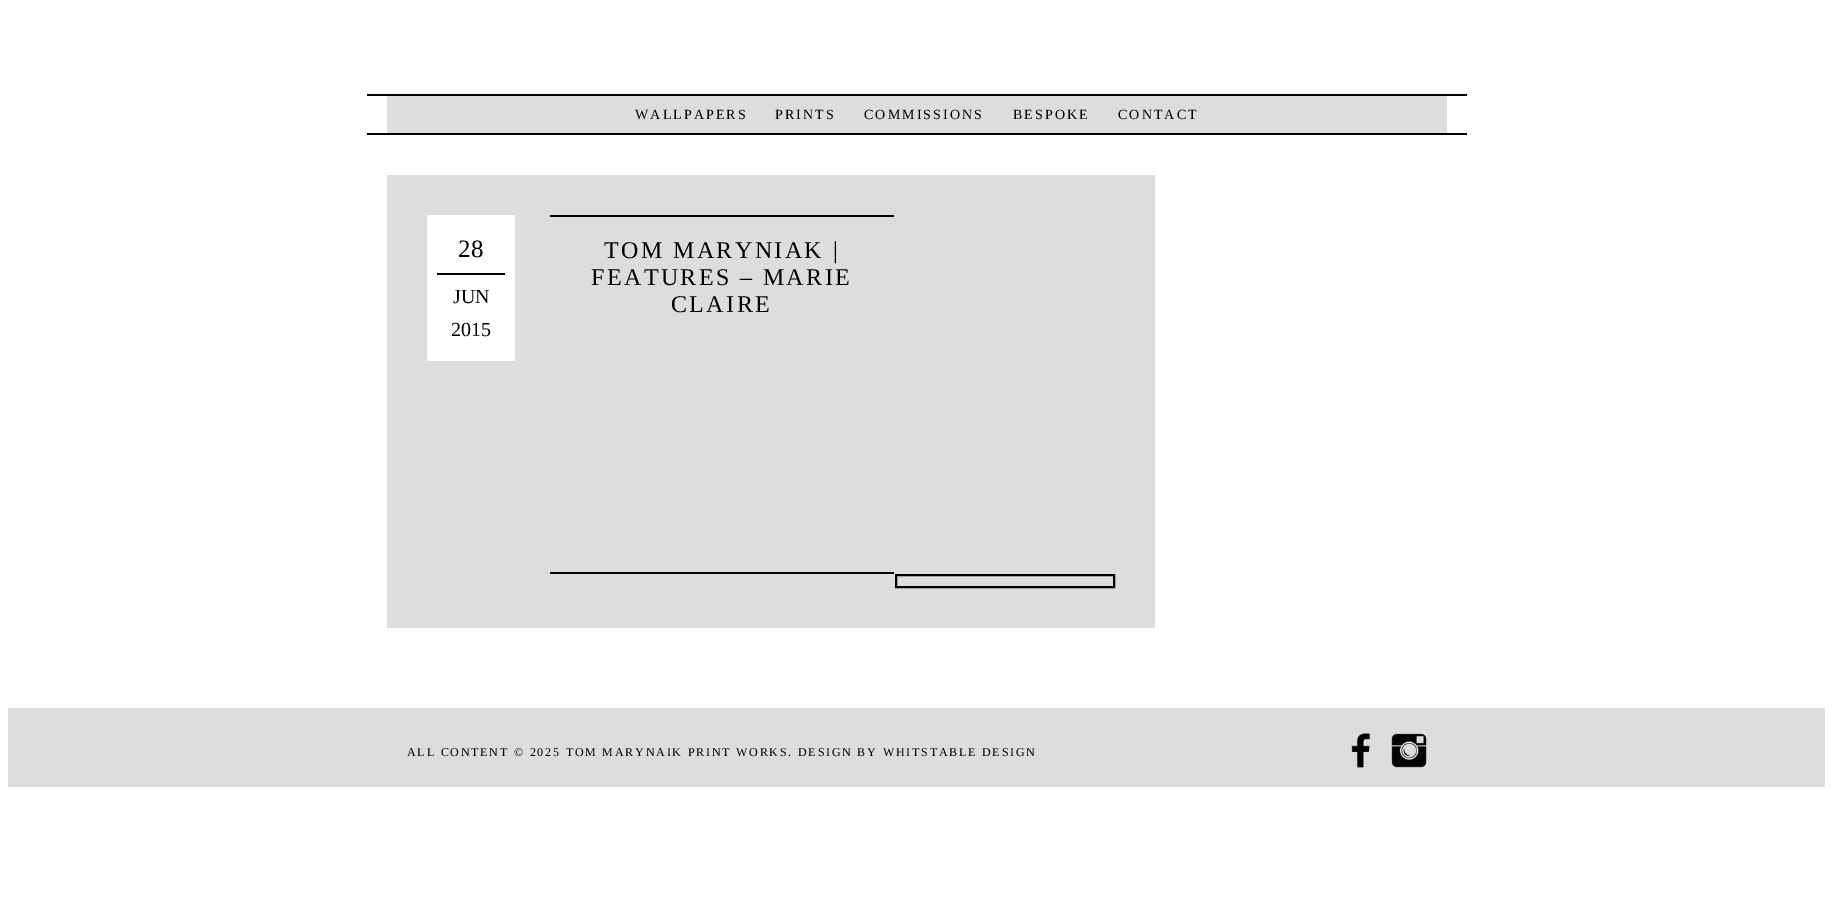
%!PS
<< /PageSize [1833 905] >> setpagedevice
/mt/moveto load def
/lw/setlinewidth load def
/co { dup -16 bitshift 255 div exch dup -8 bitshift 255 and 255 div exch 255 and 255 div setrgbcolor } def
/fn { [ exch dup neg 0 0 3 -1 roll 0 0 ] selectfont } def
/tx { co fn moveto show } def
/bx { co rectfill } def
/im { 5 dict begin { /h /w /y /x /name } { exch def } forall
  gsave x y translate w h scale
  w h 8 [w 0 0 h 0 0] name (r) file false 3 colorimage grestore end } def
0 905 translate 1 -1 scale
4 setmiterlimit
0 0 1833 905 16#FFFFFF bx
367 94 1100 2 16#000000 bx
367 133 1100 2 16#000000 bx
387 96 1060 37 16#DCDEDB bx
387 175 768 453 16#DCDEDB bx
427 215 88 146 16#FFFFFF bx
437 273 68 2 16#000000 bx
550 215 344 2 16#000000 bx
550 572 344 2 16#000000 bx
2 lw
896 575 218 12 rectstroke
8 708 1817 79 16#DCDEDB bx
(media/1.raw) 1351 733 20 35 im
(media/2.raw) 1391 733 36 35 im
/LiberationSerif-Regular 14 fn
16#000000 co
635 119 mt 2.1 0 (WALLPAPERS) ashow
775 119 mt 2.1 0 (PRINTS) ashow
864 119 mt 2.1 0 (COMMISSIONS) ashow
1013 119 mt 2.1 0 (BESPOKE) ashow
1118 119 mt 2.1 0 (CONTACT) ashow
(28) 458 257 /LiberationSerif-Regular 25 16#000000 tx
(JUN) 453 303 /LiberationSerif-Regular 20 16#000000 tx
(2015) 451 336 /LiberationSerif-Regular 20 16#000000 tx
/LiberationSerif-Regular 24 fn
604 258 mt 2.4 0 (TOM MARYNIAK |) ashow
591 285 mt 2.4 0 (FEATURES – MARIE) ashow
671 312 mt 2.4 0 (CLAIRE) ashow
/LiberationSerif-Regular 12 fn
407 756 mt 1.8 0 (ALL CONTENT © 2025 TOM MARYNAIK PRINT WORKS. DESIGN BY WHITSTABLE DESIGN) ashow
showpage
